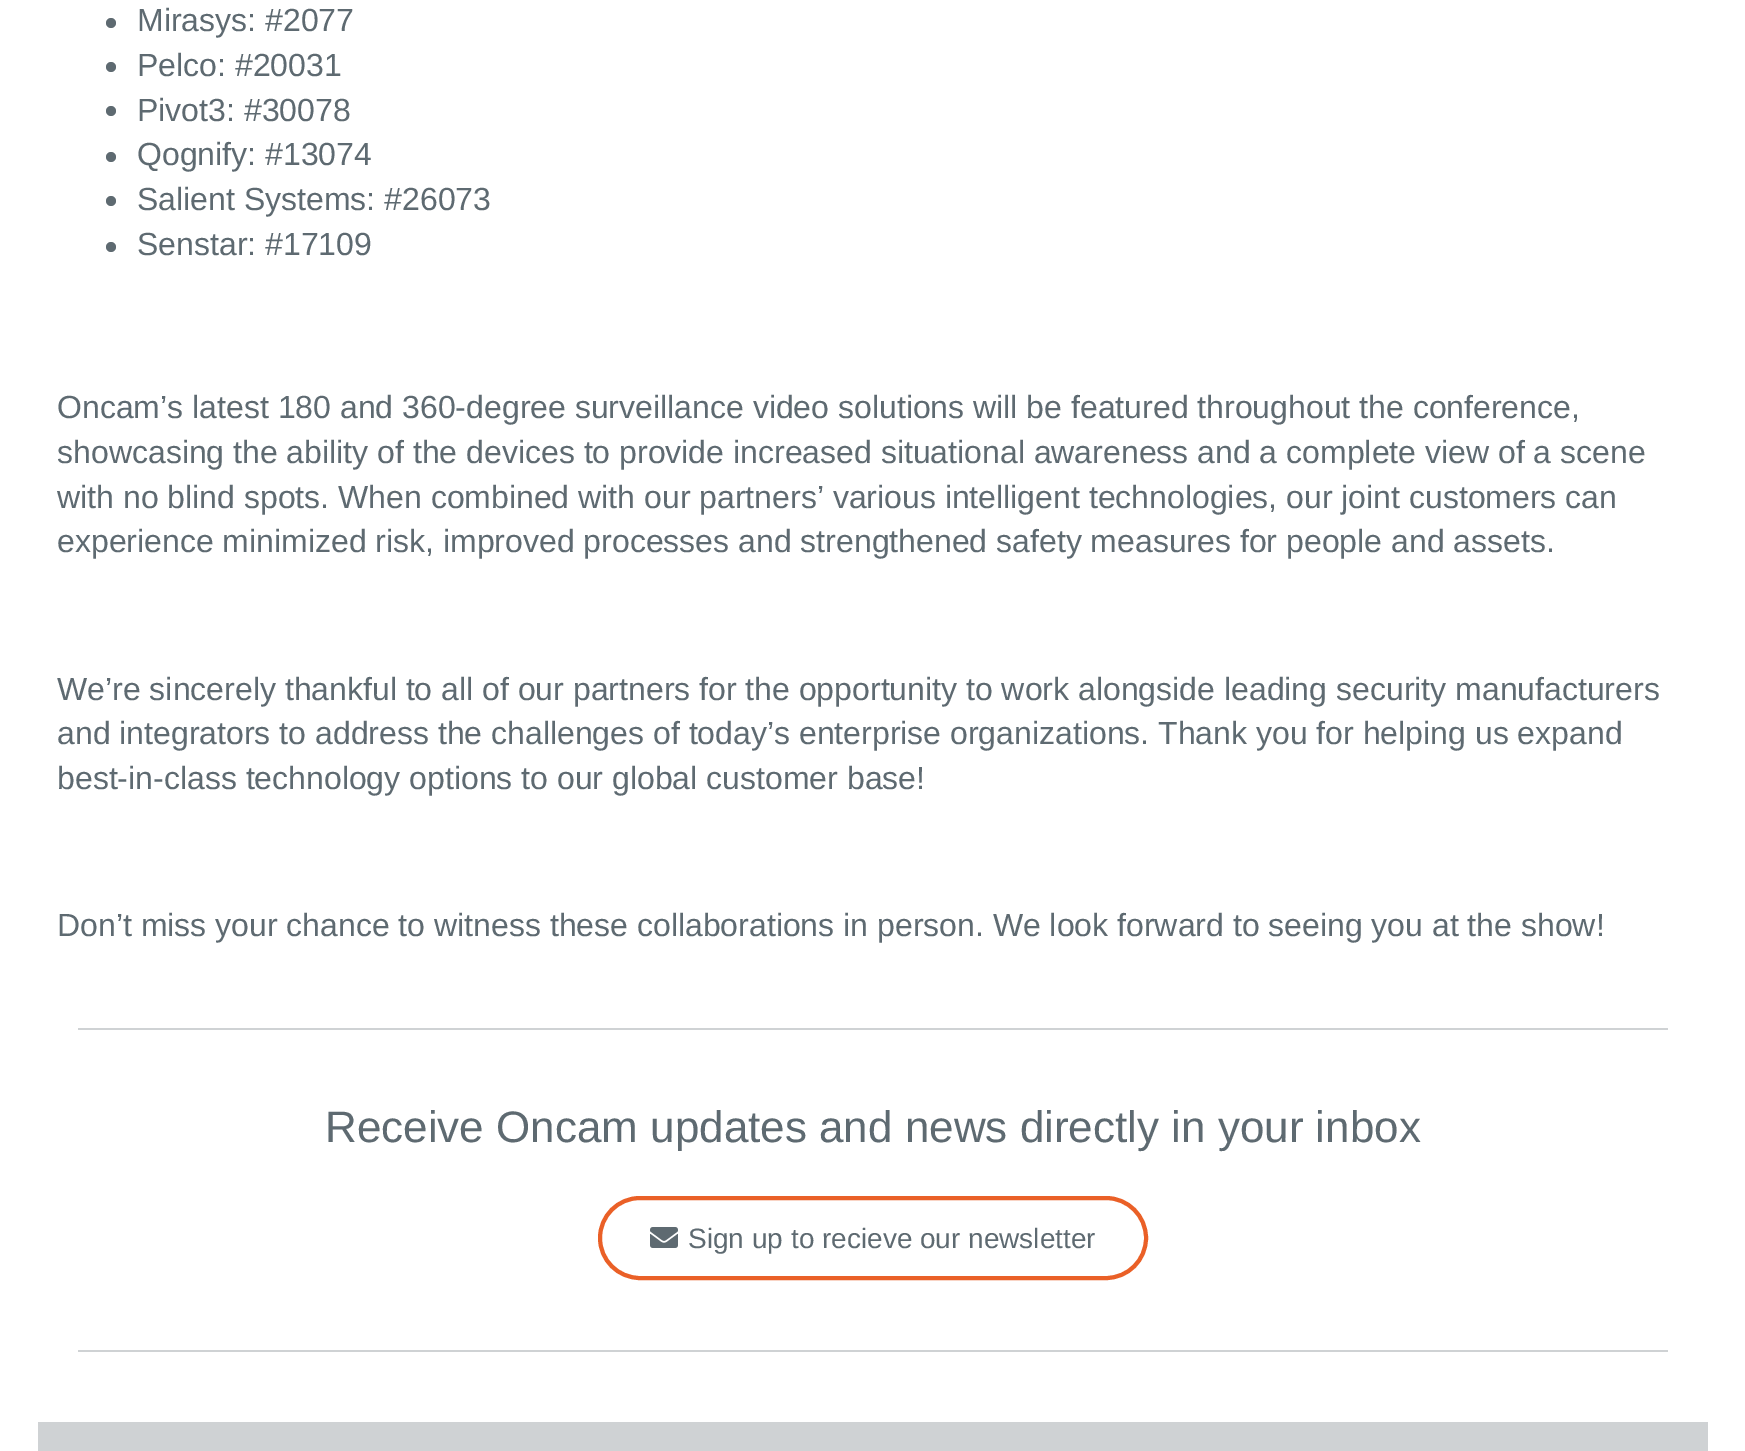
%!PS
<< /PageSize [1745 1451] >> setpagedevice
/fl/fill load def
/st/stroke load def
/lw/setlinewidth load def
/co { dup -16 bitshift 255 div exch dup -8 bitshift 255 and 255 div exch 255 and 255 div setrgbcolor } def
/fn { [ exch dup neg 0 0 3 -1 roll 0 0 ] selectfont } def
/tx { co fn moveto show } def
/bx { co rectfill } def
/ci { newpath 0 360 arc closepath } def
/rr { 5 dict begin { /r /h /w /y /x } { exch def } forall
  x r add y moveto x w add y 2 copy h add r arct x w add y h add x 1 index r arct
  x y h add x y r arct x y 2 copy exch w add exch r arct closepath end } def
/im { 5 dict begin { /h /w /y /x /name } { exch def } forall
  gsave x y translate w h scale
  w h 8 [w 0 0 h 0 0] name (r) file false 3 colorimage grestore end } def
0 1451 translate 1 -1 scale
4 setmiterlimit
0 0 1745 1451 16#FFFFFF bx
16#5E6A71 co
111 23 5 ci fl
111 67 5 ci fl
111 111 5 ci fl
111 157 5 ci fl
111 201 5 ci fl
111 247 5 ci fl
78 1028 1590 2 16#CFD2D4 bx
16#EA6027 co
4 lw
600 1198 546 80 40 rr st
(media/1.raw) 650 1227 28 21 im
78 1350 1590 2 16#CFD2D4 bx
38 1422 1670 29 16#CFD2D4 bx
(Mirasys: #2077) 137 31 /LiberationSans-Regular 32 16#5E6A71 tx
(Pelco: #20031) 137 76 /LiberationSans-Regular 32 16#5E6A71 tx
(Pivot3: #30078) 137 121 /LiberationSans-Regular 32 16#5E6A71 tx
(Qognify: #13074) 137 165 /LiberationSans-Regular 32 16#5E6A71 tx
(Salient Systems: #26073) 137 210 /LiberationSans-Regular 32 16#5E6A71 tx
(Senstar: #17109) 137 255 /LiberationSans-Regular 32 16#5E6A71 tx
(Oncam’s latest 180 and 360-degree surveillance video solutions will be featured throughout the conference,) 57 418 /LiberationSans-Regular 32 16#5E6A71 tx
(showcasing the ability of the devices to provide increased situational awareness and a complete view of a scene) 57 463 /LiberationSans-Regular 32 16#5E6A71 tx
(with no blind spots. When combined with our partners’ various intelligent technologies, our joint customers can) 57 508 /LiberationSans-Regular 32 16#5E6A71 tx
(experience minimized risk, improved processes and strengthened safety measures for people and assets.) 57 552 /LiberationSans-Regular 32 16#5E6A71 tx
(We’re sincerely thankful to all of our partners for the opportunity to work alongside leading security manufacturers) 57 700 /LiberationSans-Regular 32 16#5E6A71 tx
(and integrators to address the challenges of today’s enterprise organizations. Thank you for helping us expand) 57 744 /LiberationSans-Regular 32 16#5E6A71 tx
(best-in-class technology options to our global customer base!) 57 789 /LiberationSans-Regular 32 16#5E6A71 tx
(Don’t miss your chance to witness these collaborations in person. We look forward to seeing you at the show!) 57 936 /LiberationSans-Regular 32 16#5E6A71 tx
(Receive Oncam updates and news directly in your inbox) 325 1142 /LiberationSans-Regular 44 16#5E6A71 tx
(Sign up to recieve our newsletter) 688 1248 /LiberationSans-Regular 28 16#5E6A71 tx
showpage
